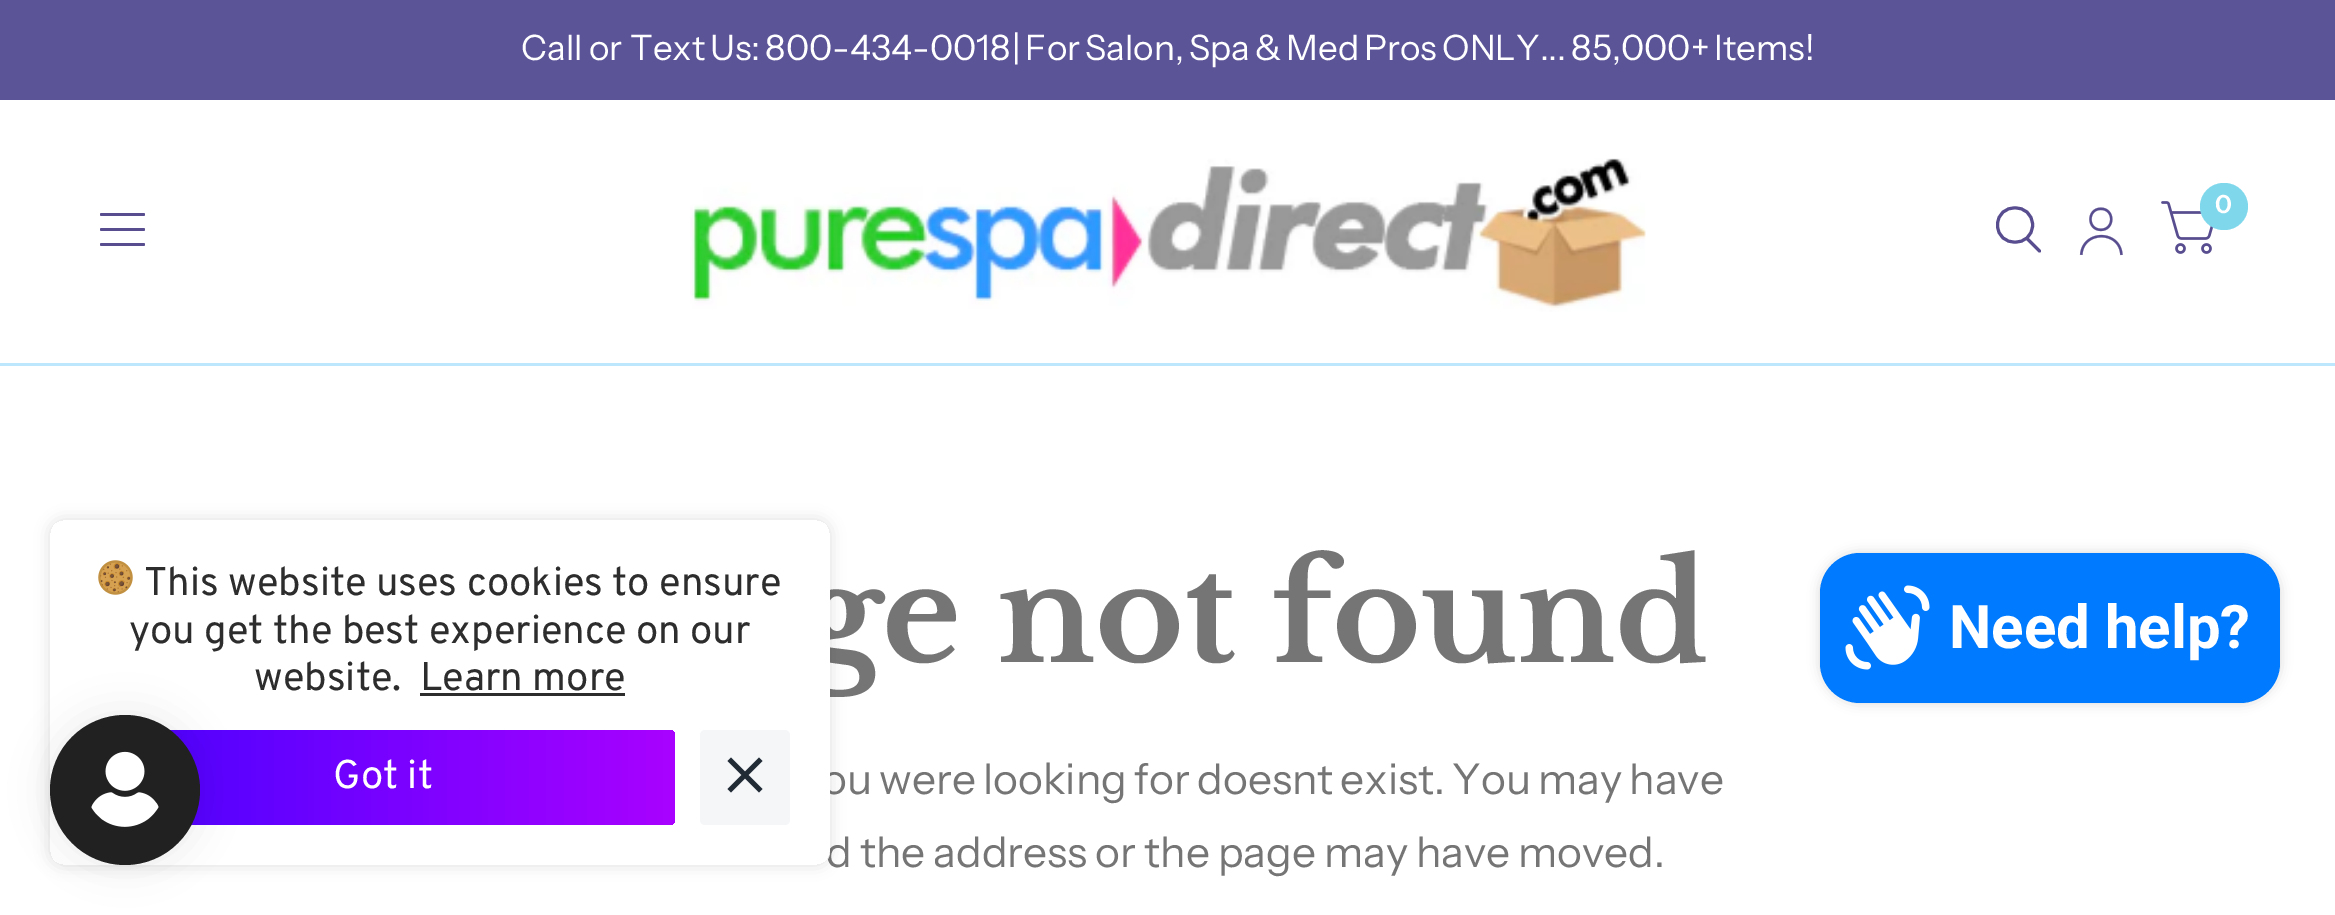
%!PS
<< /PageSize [2335 915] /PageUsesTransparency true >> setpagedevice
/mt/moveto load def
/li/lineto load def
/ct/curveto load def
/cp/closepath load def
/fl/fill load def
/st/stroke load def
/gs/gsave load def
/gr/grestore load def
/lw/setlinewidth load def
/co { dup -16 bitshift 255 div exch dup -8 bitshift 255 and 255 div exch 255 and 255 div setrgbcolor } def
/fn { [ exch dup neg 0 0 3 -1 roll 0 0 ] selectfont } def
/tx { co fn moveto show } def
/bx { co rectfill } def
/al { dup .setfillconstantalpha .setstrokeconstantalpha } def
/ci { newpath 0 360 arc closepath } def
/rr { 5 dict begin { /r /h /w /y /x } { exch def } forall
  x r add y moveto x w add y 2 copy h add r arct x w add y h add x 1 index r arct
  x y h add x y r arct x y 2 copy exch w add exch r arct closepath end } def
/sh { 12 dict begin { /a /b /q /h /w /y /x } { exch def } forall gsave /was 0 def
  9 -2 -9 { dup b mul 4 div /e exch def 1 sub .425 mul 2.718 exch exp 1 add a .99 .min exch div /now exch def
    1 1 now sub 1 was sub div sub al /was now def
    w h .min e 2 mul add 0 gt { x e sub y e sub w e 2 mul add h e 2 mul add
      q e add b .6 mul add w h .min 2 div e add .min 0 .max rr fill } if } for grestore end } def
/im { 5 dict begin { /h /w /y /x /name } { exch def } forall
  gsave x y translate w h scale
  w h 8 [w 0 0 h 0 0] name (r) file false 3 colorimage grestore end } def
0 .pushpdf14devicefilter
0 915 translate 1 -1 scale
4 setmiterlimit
0 0 2335 915 16#FFFFFF bx
0 0 2335 100 16#5B5497 bx
0 363 2335 3 16#BCE7FD bx
(media/2.raw) 690 158 956 154 im
(media/3.raw) 2161 201 53 53 im
16#7FD7EB co
2200 183 48 47 23.5 rr fl
16#584D8F co
3 lw
1 setlinecap
1 setlinejoin
2027.5 239 mt 2039.5 251 li 2032.5 225 mt 2032.5 248 1997.5 248 1997.5 225 ct 1997.5 202 2032.5 202 2032.5 225 ct cp st
(media/4.raw) 2079 207 44 49 im
100 213 45 3 1.5 rr fl
100 228 45 3 1.5 rr fl
100 243 45 3 1.5 rr fl
16#000000 co
1820 553 460 150 40 6 .15 sh
16#007BFF co
1820 553 460 150 40 rr fl
(media/5.raw) 1845 585 85 85 im
(Call) 521 60 /InstrumentSans-Regular 35 16#FFFFFF tx
(or) 589 60 /InstrumentSans-Regular 35 16#FFFFFF tx
630 60 mt -2 0 32 (Text Us: 800-434-0018) widthshow
1012 60 mt -2 0 32 (| For Salon, Spa & Med Pros ONLY... 85,000+ Items!) widthshow
(0) 2215 213 /InstrumentSans-SemiBold 25 16#FFFFFF tx
(ge not found) 800 662 /LibreBaskerville-Bold 135 16#757575 tx
/InstrumentSans-Regular 42.5 fn
822 794 mt -1.25 0 32 (ou were looking for doesnt exist. You may have) widthshow
826 867 mt -.5 0 32 (d the address or the page may have moved.) widthshow
16#FFFFFF co
50 520 780 345 13 rr fl
gs
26 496 mt 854 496 li 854 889 li 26 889 li cp 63 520 mt 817 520 li 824 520 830 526 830 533 ct 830 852 li 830 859 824 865 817 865 ct 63 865 li 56 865 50 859 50 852 ct 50 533 li 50 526 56 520 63 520 ct cp eoclip newpath
16#000000 co
50 520 780 345 13 7.5 .12 sh
gr
16#F4F6F8 co
700 730 90 95 5 rr fl
16#212B36 co
762.5 761 mt 759 757.5 li 745 771.5 li 731 757.5 li 727.5 761 li 741.5 775 li 727.5 789 li 731 792.5 li 745 778.5 li 759 792.5 li 762.5 789 li 748.5 775 li cp fl
(media/1.raw) 98 560 35 35 im
gs 90 730 585 95 5 rr clip newpath
<< /ShadingType 2 /ColorSpace /DeviceRGB /Coords [90 778 675 778] /Extend [true true] /Function << /FunctionType 2 /Domain [0 1] /C0 [.267 .004 1] /C1 [.663 .004 1] /N 1 >> >> shfill gr
(Got it) 333 788 /Overpass-Regular 40 16#FFFFFF tx
(Learn more) 420 690 /Overpass-Regular 40 16#2D2D2D tx
420 693 205 3 16#2D2D2D bx
(website.) 254 690 /Overpass-Regular 40 16#2D2D2D tx
(you get the best experience on our) 129 643 /Overpass-Regular 40 16#2D2D2D tx
(This website uses cookies to ensure) 144 595 /Overpass-Regular 40 16#2D2D2D tx
(Need help?) 1949 648 /Roboto-Bold 60 16#FFFFFF tx
16#000000 co
50 715 150 150 75 19 .08 sh
16#212121 co
125 790 75 ci fl
(media/6.raw) 91 751 68 76 im
.poppdf14devicefilter showpage
